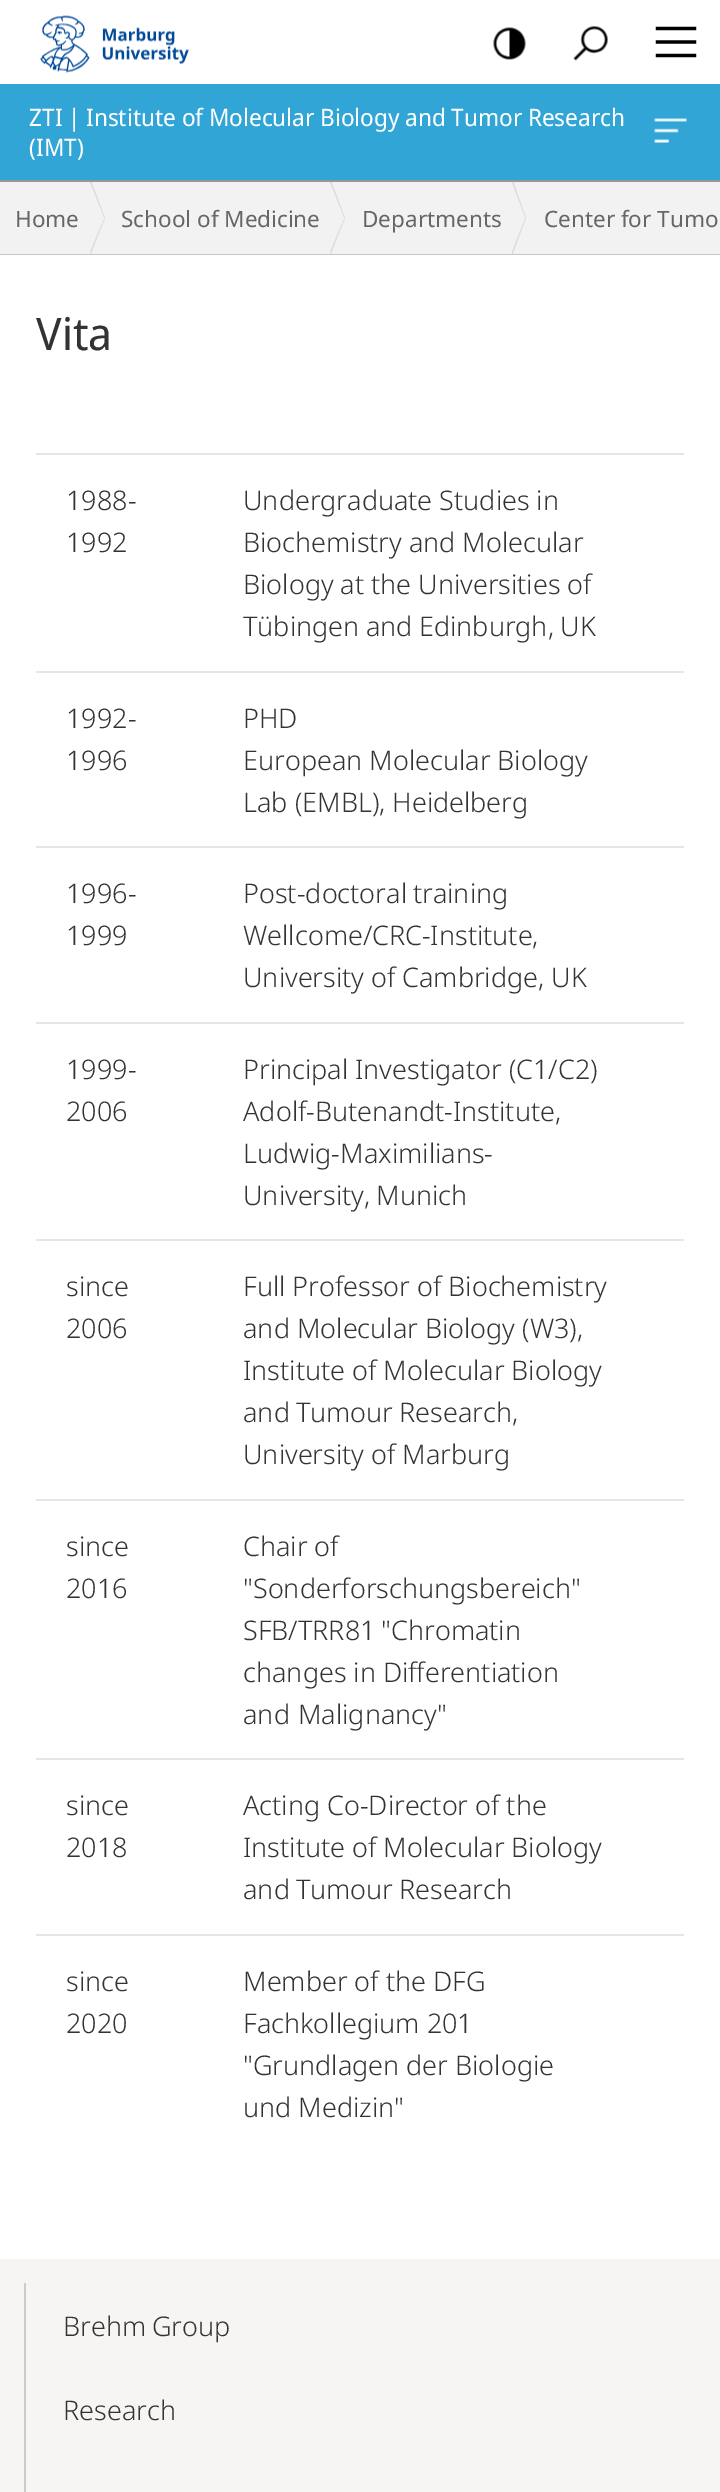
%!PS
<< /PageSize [720 2492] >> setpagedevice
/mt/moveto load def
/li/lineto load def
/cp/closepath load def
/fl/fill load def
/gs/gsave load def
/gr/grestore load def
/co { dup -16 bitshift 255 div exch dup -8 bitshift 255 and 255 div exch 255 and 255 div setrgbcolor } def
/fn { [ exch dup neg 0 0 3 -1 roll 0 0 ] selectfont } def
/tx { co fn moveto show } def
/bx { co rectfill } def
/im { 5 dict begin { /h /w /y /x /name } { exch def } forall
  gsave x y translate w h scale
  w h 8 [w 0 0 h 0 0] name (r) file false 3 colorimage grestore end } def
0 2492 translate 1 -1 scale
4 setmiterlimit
0 0 720 2492 16#FFFFFF bx
(media/1.raw) 40 15 149 58 im
(media/2.raw) 493 27 33 33 im
(media/3.raw) 573 26 35 35 im
(media/4.raw) 655 26 42 32 im
0 84 720 96 16#31A5D6 bx
(media/5.raw) 654 118 33 25 im
0 180 720 2 16#989898 bx
0 254 720 1 16#C7C7C7 bx
0 182 720 72 16#F2F2F2 bx
gs
0 182 720 72 rectclip
16#DDDDDD co
90 256 mt 90 178 li 105 218 li cp fl
16#F2F2F2 co
88 256 mt 88 178 li 104 218 li cp fl
16#DDDDDD co
330 256 mt 330 178 li 345 218 li cp fl
16#F2F2F2 co
328 256 mt 328 178 li 344 218 li cp fl
16#DDDDDD co
512 256 mt 512 178 li 526 218 li cp fl
16#F2F2F2 co
510 256 mt 510 178 li 525 218 li cp fl
gr
36 453 648 2 16#E6E6E6 bx
36 671 648 2 16#E6E6E6 bx
36 846 648 2 16#E6E6E6 bx
36 1022 648 2 16#E6E6E6 bx
36 1239 648 2 16#E6E6E6 bx
36 1499 648 2 16#E6E6E6 bx
36 1758 648 2 16#E6E6E6 bx
36 1934 648 2 16#E6E6E6 bx
0 2259 720 233 16#F7F5F4 bx
24 2283 2 209 16#CCCCCC bx
/NotoSansDisplay-Regular 24 fn
16#FFFFFF co
29 126 mt -.25 0 32 (ZTI | Institute of Molecular Biology and Tumor Research) widthshow
(\(IMT\)) 29 156 /NotoSansDisplay-Regular 24 16#FFFFFF tx
(Home) 15 227 /NotoSans-Regular 22.5 16#666666 tx
(School of Medicine) 121 227 /NotoSans-Regular 22.5 16#666666 tx
(Departments) 362 227 /NotoSans-Regular 22.5 16#666666 tx
(Center for Tumo) 544 227 /NotoSans-Regular 22.5 16#666666 tx
(Vita) 36 350 /NotoSansDisplay-Regular 45 16#333333 tx
(1988-) 66 510 /NotoSans-Light 27 16#333333 tx
(1992) 66 552 /NotoSans-Light 27 16#333333 tx
(Undergraduate Studies in) 243 510 /NotoSans-Light 27 16#333333 tx
(Biochemistry and Molecular) 243 552 /NotoSans-Light 27 16#333333 tx
(Biology at the Universities of) 243 594 /NotoSans-Light 27 16#333333 tx
243 636 mt -.5 0 32 (Tübingen and Edinburgh, UK) widthshow
(1992-) 66 728 /NotoSans-Light 27 16#333333 tx
(1996) 66 770 /NotoSans-Light 27 16#333333 tx
(PHD) 243 728 /NotoSans-Light 27 16#333333 tx
(European Molecular Biology) 243 770 /NotoSans-Light 27 16#333333 tx
(Lab \(EMBL\), Heidelberg) 243 812 /NotoSans-Light 27 16#333333 tx
(1996-) 66 903 /NotoSans-Light 27 16#333333 tx
(1999) 66 945 /NotoSans-Light 27 16#333333 tx
243 903 mt -1 0 32 (Post-doctoral training) widthshow
(Wellcome/CRC-Institute,) 243 945 /NotoSans-Light 27 16#333333 tx
(University of Cambridge, UK) 243 987 /NotoSans-Light 27 16#333333 tx
(1999-) 66 1079 /NotoSans-Light 27 16#333333 tx
(2006) 66 1121 /NotoSans-Light 27 16#333333 tx
(Principal Investigator \(C1/C2\)) 243 1079 /NotoSans-Light 27 16#333333 tx
(Adolf-Butenandt-Institute,) 243 1121 /NotoSans-Light 27 16#333333 tx
(Ludwig-Maximilians-) 243 1163 /NotoSans-Light 27 16#333333 tx
243 1205 mt -1 0 32 (University, Munich) widthshow
(since) 66 1296 /NotoSans-Light 27 16#333333 tx
(2006) 66 1338 /NotoSans-Light 27 16#333333 tx
(Full Professor of Biochemistry) 243 1296 /NotoSans-Light 27 16#333333 tx
(and Molecular Biology \(W3\),) 243 1338 /NotoSans-Light 27 16#333333 tx
(Institute of Molecular Biology) 243 1380 /NotoSans-Light 27 16#333333 tx
243 1422 mt -1 0 32 (and Tumour Research,) widthshow
(University of Marburg) 243 1464 /NotoSans-Light 27 16#333333 tx
(since) 66 1556 /NotoSans-Light 27 16#333333 tx
(2016) 66 1598 /NotoSans-Light 27 16#333333 tx
(Chair of) 243 1556 /NotoSans-Light 27 16#333333 tx
("Sonderforschungsbereich") 243 1598 /NotoSans-Light 27 16#333333 tx
243 1640 mt -1 0 32 (SFB/TRR81 "Chromatin) widthshow
(changes in Differentiation) 243 1682 /NotoSans-Light 27 16#333333 tx
243 1724 mt 1 0 32 (and Malignancy") widthshow
(since) 66 1815 /NotoSans-Light 27 16#333333 tx
(2018) 66 1857 /NotoSans-Light 27 16#333333 tx
(Acting Co-Director of the) 243 1815 /NotoSans-Light 27 16#333333 tx
(Institute of Molecular Biology) 243 1857 /NotoSans-Light 27 16#333333 tx
243 1899 mt -1 0 32 (and Tumour Research) widthshow
(since) 66 1991 /NotoSans-Light 27 16#333333 tx
(2020) 66 2033 /NotoSans-Light 27 16#333333 tx
(Member of the DFG) 243 1991 /NotoSans-Light 27 16#333333 tx
(Fachkollegium 201) 243 2033 /NotoSans-Light 27 16#333333 tx
("Grundlagen der Biologie) 243 2075 /NotoSans-Light 27 16#333333 tx
(und Medizin") 243 2117 /NotoSans-Light 27 16#333333 tx
63 2336 mt -1 0 32 (Brehm Group) widthshow
(Research) 63 2420 /NotoSans-Light 27 16#333333 tx
showpage
